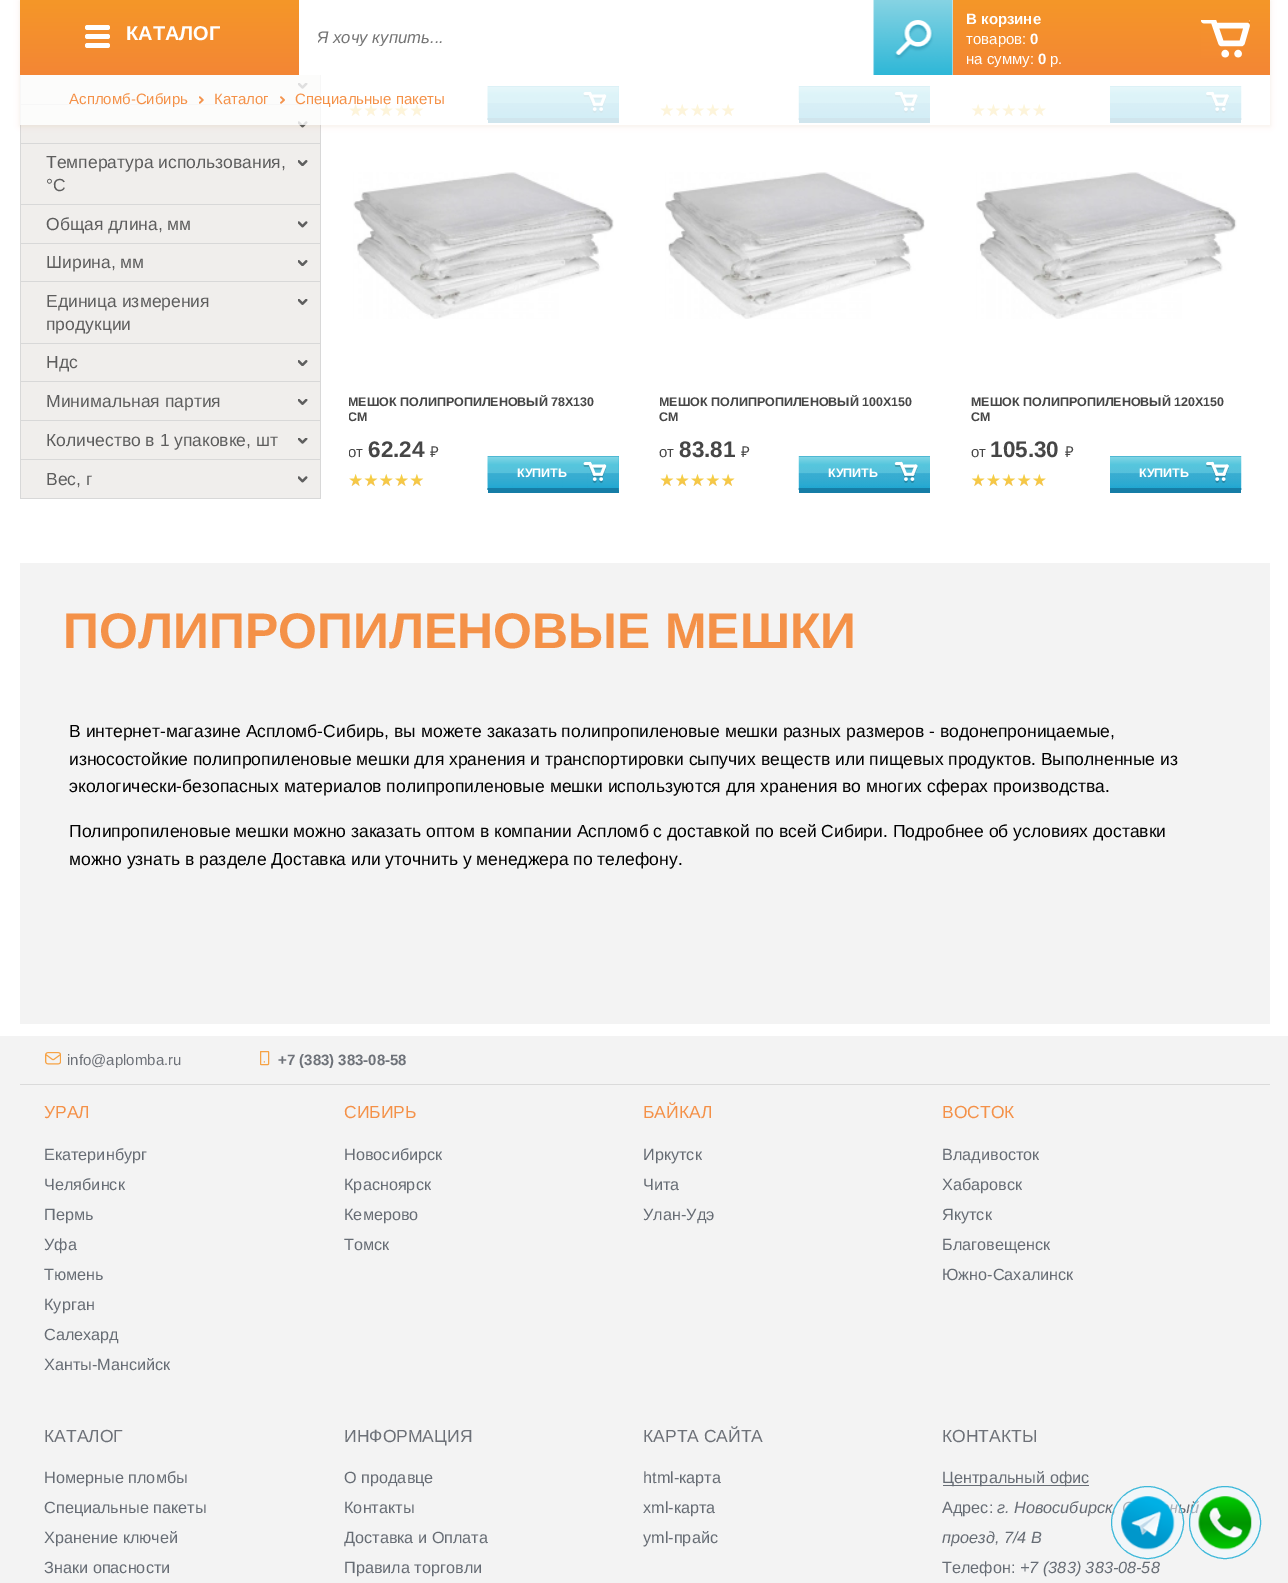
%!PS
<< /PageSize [1288 1583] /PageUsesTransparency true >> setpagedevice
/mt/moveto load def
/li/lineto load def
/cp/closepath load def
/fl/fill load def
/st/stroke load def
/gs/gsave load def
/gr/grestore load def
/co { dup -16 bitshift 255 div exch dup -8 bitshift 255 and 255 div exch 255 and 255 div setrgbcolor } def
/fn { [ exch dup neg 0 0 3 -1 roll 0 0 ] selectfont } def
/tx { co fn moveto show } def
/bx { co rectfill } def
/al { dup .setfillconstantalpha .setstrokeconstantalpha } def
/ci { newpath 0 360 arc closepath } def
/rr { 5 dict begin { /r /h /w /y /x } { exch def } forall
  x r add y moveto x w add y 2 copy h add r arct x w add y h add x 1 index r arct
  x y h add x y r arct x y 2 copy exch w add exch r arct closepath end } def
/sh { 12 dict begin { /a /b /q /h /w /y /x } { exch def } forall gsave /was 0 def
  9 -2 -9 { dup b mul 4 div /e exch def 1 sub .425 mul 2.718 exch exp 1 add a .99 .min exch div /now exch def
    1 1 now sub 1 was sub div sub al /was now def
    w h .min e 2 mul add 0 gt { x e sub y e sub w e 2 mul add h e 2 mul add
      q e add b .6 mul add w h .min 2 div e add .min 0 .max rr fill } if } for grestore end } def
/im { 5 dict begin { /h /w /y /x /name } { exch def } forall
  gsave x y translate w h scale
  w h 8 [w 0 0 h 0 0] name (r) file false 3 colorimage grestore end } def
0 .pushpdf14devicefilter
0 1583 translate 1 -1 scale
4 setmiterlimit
0 0 1288 1583 16#FFFFFF bx
21 75 299 29 16#F0EEEC bx
320 75 1 424 16#D8D8D8 bx
20 104 301 1 16#D8D8D8 bx
20 75 1 30 16#D8D8D8 bx
(media/5.raw) 298 83 10 6 im
21 105 299 38 16#F0EEEC bx
20 143 301 1 16#D8D8D8 bx
20 105 1 39 16#D8D8D8 bx
(media/6.raw) 298 121 10 7 im
(media/9.raw) 349 104 74 12 im
(media/10.raw) 349 104 75 13 im
16#167DA6 co
488 120 mt 488 123 li 619 123 li 619 89 li 619 120 li cp fl
488 86 131 34 16#27AFD5 bx
(media/11.raw) 487 86 132 34 im
(media/13.raw) 661 104 73 12 im
(media/12.raw) 660 104 75 13 im
799 120 131 3 16#167DA6 bx
(media/14.raw) 798 86 132 34 im
(media/16.raw) 972 104 74 12 im
(media/15.raw) 971 104 75 13 im
1110 120 131 3 16#167DA6 bx
(media/17.raw) 1110 86 132 34 im
gs
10 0 mt 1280 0 li 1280 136 li 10 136 li cp 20 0 mt 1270 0 li 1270 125 li 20 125 li cp eoclip newpath
16#964E00 co
20 1 1250 125 0 3 .1 sh
gr
0.8 al
20 75 1222 50 16#FFFFFF bx
1 al
gs 20 0 mt 1270 0 li 1270 75 li 20 75 li cp clip newpath
<< /ShadingType 2 /ColorSpace /DeviceRGB /Coords [645 0 645 75] /Extend [true true] /Function << /FunctionType 2 /Domain [0 1] /C0 [.961 .592 .157] /C1 [.953 .525 .208] /N 1 >> >> shfill gr
85 25 25 5 2.5 rr fl
85 34 25 5 2.5 rr fl
85 43 25 5 2.5 rr fl
299 0 575 75 16#FFFFFF bx
874 0 79 75 16#EFEFEF bx
(media/1.raw) 873 0 80 75 im
(media/2.raw) 1201 20 49 38 im
(media/3.raw) 199 96 5 8 im
(media/4.raw) 280 96 5 8 im
21 144 299 60 16#F0EEEC bx
20 204 301 1 16#D8D8D8 bx
20 144 1 61 16#D8D8D8 bx
(media/7.raw) 298 160 10 6 im
21 205 299 38 16#F0EEEC bx
20 243 301 1 16#D8D8D8 bx
20 205 1 39 16#D8D8D8 bx
(media/6.raw) 298 221 10 7 im
21 244 299 99 16#F0EEEC bx
20 281 301 1 16#D8D8D8 bx
20 244 1 39 16#D8D8D8 bx
(media/7.raw) 298 260 10 6 im
20 343 301 1 16#D8D8D8 bx
20 283 1 61 16#D8D8D8 bx
(media/8.raw) 298 299 10 6 im
21 344 299 76 16#F0EEEC bx
20 381 301 1 16#D8D8D8 bx
20 344 1 39 16#D8D8D8 bx
(media/7.raw) 298 360 10 6 im
20 420 301 1 16#D8D8D8 bx
20 383 1 38 16#D8D8D8 bx
(media/8.raw) 298 399 10 6 im
21 421 299 38 16#F0EEEC bx
20 459 301 1 16#D8D8D8 bx
20 421 1 39 16#D8D8D8 bx
(media/5.raw) 298 438 10 6 im
21 460 299 38 16#F0EEEC bx
20 498 301 1 16#D8D8D8 bx
20 460 1 39 16#D8D8D8 bx
(media/6.raw) 298 476 10 7 im
(media/18.raw) 353 172 261 147 im
16#167DA6 co
488 490 mt 488 493 li 619 493 li 619 459 li 619 490 li cp fl
488 456 131 34 16#27AFD5 bx
(media/11.raw) 487 456 132 34 im
(media/9.raw) 349 474 74 12 im
(media/10.raw) 349 474 75 13 im
(media/19.raw) 665 172 260 147 im
799 490 131 3 16#167DA6 bx
(media/14.raw) 798 456 132 34 im
(media/13.raw) 661 474 73 12 im
(media/12.raw) 660 474 75 13 im
(media/20.raw) 976 172 261 147 im
1110 490 131 3 16#167DA6 bx
(media/17.raw) 1110 456 132 34 im
(media/16.raw) 972 474 74 12 im
(media/15.raw) 971 474 75 13 im
20 563 1250 461 16#F3F3F3 bx
0 1036 1288 547 16#F3F3F3 bx
20 1084 1250 1 16#DADADA bx
(media/21.raw) 45 1052 16 13 im
16#F6A244 co
260.5 1051.5 8 13 .5 rr st
264.4 1061.9 .6 ci fl
943 1485 146 1 16#666C74 bx
(КАТАЛОГ) 126 40 /LiberationSans-Bold 20 16#FFFFFF tx
gs
318 28 555 18 rectclip
(Я хочу купить...) 317 43 /LiberationSans-Italic 16.75 16#757575 tx
gr
(В корзине) 966 24 /LiberationSans-Bold 15 16#FFFFFF tx
(товаров:) 966 44 /LiberationSans-Regular 15 16#FFFFFF tx
(0) 1030 44 /LiberationSans-Bold 15 16#FFFFFF tx
(на сумму:) 966 64 /LiberationSans-Regular 15 16#FFFFFF tx
(0) 1038 64 /LiberationSans-Bold 15 16#FFFFFF tx
(р.) 1050 64 /LiberationSans-Regular 15 16#FFFFFF tx
(Аспломб-Сибирь) 69 104 /LiberationSans-Regular 15 16#F49148 tx
(Каталог) 214 104 /LiberationSans-Regular 15 16#F49148 tx
(Специальные пакеты) 295 104 /LiberationSans-Regular 15 16#F49148 tx
(Температура использования,) 46 168 /LiberationSans-Regular 17.5 16#5D5D5D tx
(°C) 46 191 /LiberationSans-Regular 17.5 16#5D5D5D tx
(Общая длина, мм) 46 230 /LiberationSans-Regular 17.5 16#5D5D5D tx
(Ширина, мм) 46 268 /LiberationSans-Regular 17.5 16#5D5D5D tx
(Единица измерения) 46 307 /LiberationSans-Regular 17.5 16#5D5D5D tx
(продукции) 46 330 /LiberationSans-Regular 17.5 16#5D5D5D tx
(Ндс) 46 368 /LiberationSans-Regular 17.5 16#5D5D5D tx
(Минимальная партия) 46 407 /LiberationSans-Regular 17.5 16#5D5D5D tx
(Количество в 1 упаковке, шт) 46 446 /LiberationSans-Regular 17.5 16#5D5D5D tx
(Вес, г) 46 485 /LiberationSans-Regular 17.5 16#5D5D5D tx
gs
349 395 262 45 rectclip
(МЕШОК ПОЛИПРОПИЛЕНОВЫЙ 78X130) 348 406 /LiberationSans-Bold 12.5 16#464646 tx
(СМ) 348 421 /LiberationSans-Bold 12.5 16#464646 tx
gr
gs
349 439 262 24 rectclip
(от) 348 457 /LiberationSans-Regular 15 16#464646 tx
gr
(62.24) 368 457 /LiberationSans-Bold 22.5 16#464646 tx
(₽) 430 457 /NotoSans-Regular 15 16#464646 tx
(КУПИТЬ) 517 477 /LiberationSans-Bold 12.5 16#FFFFFF tx
gs
660 395 263 45 rectclip
(МЕШОК ПОЛИПРОПИЛЕНОВЫЙ 100X150) 659 406 /LiberationSans-Bold 12.5 16#464646 tx
gr
(СМ) 659 421 /LiberationSans-Bold 12.5 16#464646 tx
(от) 659 457 /LiberationSans-Regular 15 16#464646 tx
(83.81) 679 457 /LiberationSans-Bold 22.5 16#464646 tx
(₽) 741 457 /NotoSans-Regular 15 16#464646 tx
(КУПИТЬ) 828 477 /LiberationSans-Bold 12.5 16#FFFFFF tx
gs
971 395 263 45 rectclip
(МЕШОК ПОЛИПРОПИЛЕНОВЫЙ 120X150) 971 406 /LiberationSans-Bold 12.5 16#464646 tx
gr
(СМ) 971 421 /LiberationSans-Bold 12.5 16#464646 tx
(от) 971 457 /LiberationSans-Regular 15 16#464646 tx
(105.30) 990 457 /LiberationSans-Bold 22.5 16#464646 tx
(₽) 1065 457 /NotoSans-Regular 15 16#464646 tx
(КУПИТЬ) 1139 477 /LiberationSans-Bold 12.5 16#FFFFFF tx
(ПОЛИПРОПИЛЕНОВЫЕ МЕШКИ) 63 648 /LiberationSans-Bold 50 16#F49148 tx
(В интернет-магазине Аспломб-Сибирь, вы можете заказать полипропиленовые мешки разных размеров - водонепроницаемые,) 69 737 /LiberationSans-Regular 17.5 16#000000 tx
(износостойкие полипропиленовые мешки для хранения и транспортировки сыпучих веществ или пищевых продуктов. Выполненные из) 69 765 /LiberationSans-Regular 17.5 16#000000 tx
(экологически-безопасных материалов полипропиленовые мешки используются для хранения во многих сферах производства.) 69 792 /LiberationSans-Regular 17.5 16#000000 tx
(Полипропиленовые мешки можно заказать оптом в компании Аспломб с доставкой по всей Сибири. Подробнее об условиях доставки) 69 837 /LiberationSans-Regular 17.5 16#000000 tx
(можно узнать в разделе Доставка или уточнить у менеджера по телефону.) 69 865 /LiberationSans-Regular 17.5 16#000000 tx
(info@aplomba.ru) 67 1065 /LiberationSans-Regular 15 16#6D7178 tx
(+7 \(383\) 383-08-58) 278 1065 /LiberationSans-Bold 15 16#6D7178 tx
(УРАЛ) 44 1118 /LiberationSans-Regular 17.5 16#F49148 tx
(Екатеринбург) 44 1160 /LiberationSans-Regular 16.25 16#666C74 tx
(Челябинск) 44 1190 /LiberationSans-Regular 16.25 16#666C74 tx
(Пермь) 44 1220 /LiberationSans-Regular 16.25 16#666C74 tx
(Уфа) 44 1250 /LiberationSans-Regular 16.25 16#666C74 tx
(Тюмень) 44 1280 /LiberationSans-Regular 16.25 16#666C74 tx
(Курган) 44 1310 /LiberationSans-Regular 16.25 16#666C74 tx
(Салехард) 44 1340 /LiberationSans-Regular 16.25 16#666C74 tx
(Ханты-Мансийск) 44 1370 /LiberationSans-Regular 16.25 16#666C74 tx
(СИБИРЬ) 344 1118 /LiberationSans-Regular 17.5 16#F49148 tx
(Новосибирск) 344 1160 /LiberationSans-Regular 16.25 16#666C74 tx
(Красноярск) 344 1190 /LiberationSans-Regular 16.25 16#666C74 tx
(Кемерово) 344 1220 /LiberationSans-Regular 16.25 16#666C74 tx
(Томск) 344 1250 /LiberationSans-Regular 16.25 16#666C74 tx
(БАЙКАЛ) 643 1118 /LiberationSans-Regular 17.5 16#F49148 tx
(Иркутск) 643 1160 /LiberationSans-Regular 16.25 16#666C74 tx
(Чита) 643 1190 /LiberationSans-Regular 16.25 16#666C74 tx
(Улан-Удэ) 643 1220 /LiberationSans-Regular 16.25 16#666C74 tx
(ВОСТОК) 942 1118 /LiberationSans-Regular 17.5 16#F49148 tx
(Владивосток) 942 1160 /LiberationSans-Regular 16.25 16#666C74 tx
(Хабаровск) 942 1190 /LiberationSans-Regular 16.25 16#666C74 tx
(Якутск) 942 1220 /LiberationSans-Regular 16.25 16#666C74 tx
(Благовещенск) 942 1250 /LiberationSans-Regular 16.25 16#666C74 tx
(Южно-Сахалинск) 942 1280 /LiberationSans-Regular 16.25 16#666C74 tx
(КАТАЛОГ) 44 1442 /LiberationSans-Regular 17.5 16#6D7178 tx
(Номерные пломбы) 44 1483 /LiberationSans-Regular 16.25 16#666C74 tx
(Специальные пакеты) 44 1513 /LiberationSans-Regular 16.25 16#666C74 tx
(Хранение ключей) 44 1543 /LiberationSans-Regular 16.25 16#666C74 tx
(Знаки опасности) 44 1573 /LiberationSans-Regular 16.25 16#666C74 tx
(ИНФОРМАЦИЯ) 344 1442 /LiberationSans-Regular 17.5 16#6D7178 tx
(О продавце) 344 1483 /LiberationSans-Regular 16.25 16#666C74 tx
(Контакты) 344 1513 /LiberationSans-Regular 16.25 16#666C74 tx
(Доставка и Оплата) 344 1543 /LiberationSans-Regular 16.25 16#666C74 tx
(Правила торговли) 344 1573 /LiberationSans-Regular 16.25 16#666C74 tx
(КАРТА САЙТА) 643 1442 /LiberationSans-Regular 17.5 16#6D7178 tx
(html-карта) 643 1483 /LiberationSans-Regular 16.25 16#666C74 tx
(xml-карта) 643 1513 /LiberationSans-Regular 16.25 16#666C74 tx
(yml-прайс) 643 1543 /LiberationSans-Regular 16.25 16#666C74 tx
(КОНТАКТЫ) 942 1442 /LiberationSans-Regular 17.5 16#6D7178 tx
(Центральный офис) 942 1483 /LiberationSans-Regular 16.25 16#666C74 tx
(Адрес:) 942 1513 /LiberationSans-Regular 16.25 16#666C74 tx
(г. Новосибирск,) 997 1513 /LiberationSans-Italic 16.25 16#666C74 tx
(ный) 1169 1513 /LiberationSans-Italic 16.25 16#666C74 tx
(проезд, 7/4 В) 942 1543 /LiberationSans-Italic 16.25 16#666C74 tx
(Телефон:) 942 1573 /LiberationSans-Regular 16.25 16#666C74 tx
(+7 \(383\) 383-08-58) 1020 1573 /LiberationSans-Italic 16.25 16#666C74 tx
0.5 al
16#F0F8FF co
1147.5 1522.5 36 ci fl
1 al
16#3DB8D9 co
1147.5 1522.5 36 ci st
(media/22.raw) 1121 1496 54 54 im
0.5 al
16#F0F8FF co
1189.5 1486.5 71 72 35.5 rr fl
1 al
16#3DB8D9 co
1189.5 1486.5 71 72 35.5 rr st
(media/23.raw) 1198 1496 54 54 im
.poppdf14devicefilter showpage
